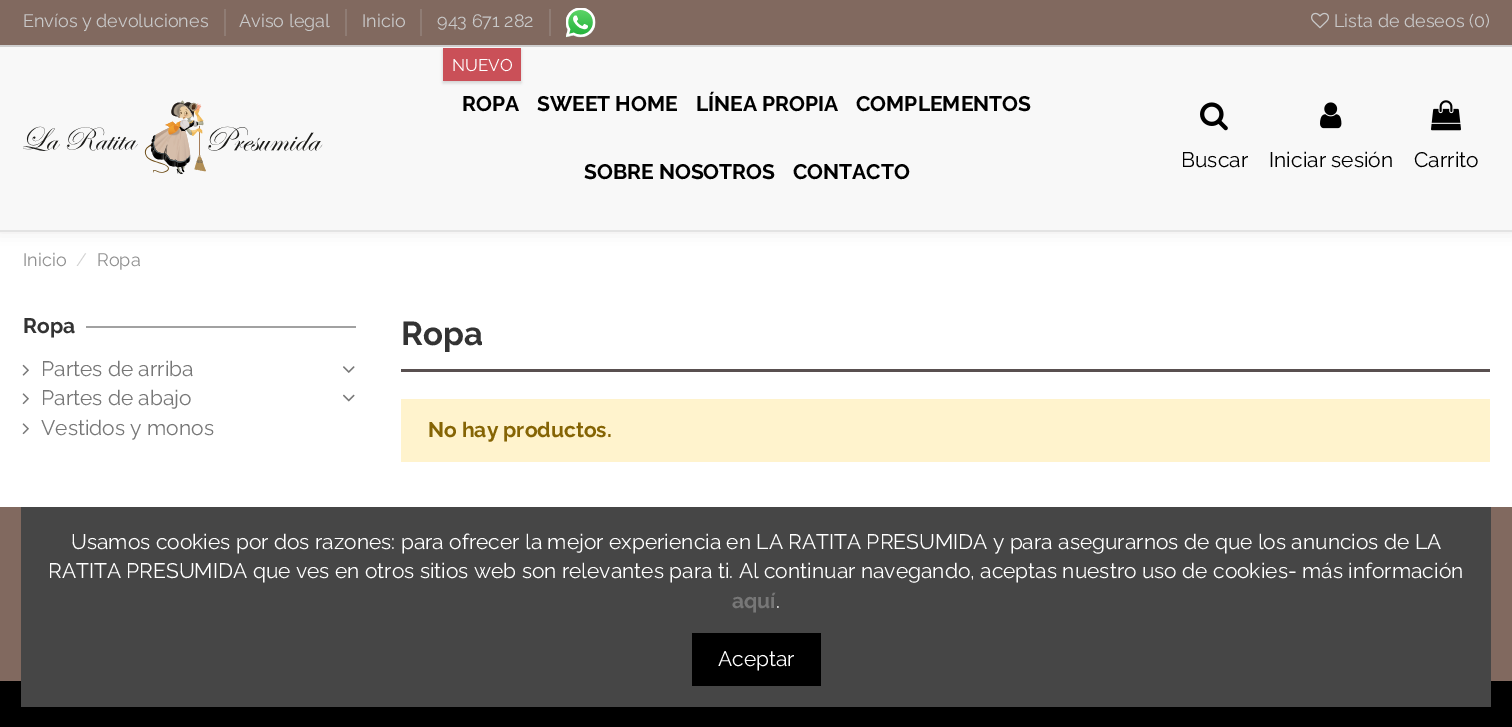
%!PS
<< /PageSize [1512 727] /PageUsesTransparency true >> setpagedevice
/co { dup -16 bitshift 255 div exch dup -8 bitshift 255 and 255 div exch 255 and 255 div setrgbcolor } def
/fn { [ exch dup neg 0 0 3 -1 roll 0 0 ] selectfont } def
/tx { co fn moveto show } def
/bx { co rectfill } def
/al { dup .setfillconstantalpha .setstrokeconstantalpha } def
/rr { 5 dict begin { /r /h /w /y /x } { exch def } forall
  x r add y moveto x w add y 2 copy h add r arct x w add y h add x 1 index r arct
  x y h add x y r arct x y 2 copy exch w add exch r arct closepath end } def
/sh { 12 dict begin { /a /b /q /h /w /y /x } { exch def } forall gsave /was 0 def
  9 -2 -9 { dup b mul 4 div /e exch def 1 sub .425 mul 2.718 exch exp 1 add a .99 .min exch div /now exch def
    1 1 now sub 1 was sub div sub al /was now def
    w h .min e 2 mul add 0 gt { x e sub y e sub w e 2 mul add h e 2 mul add
      q e add b .6 mul add w h .min 2 div e add .min 0 .max rr fill } if } for grestore end } def
/im { 5 dict begin { /h /w /y /x /name } { exch def } forall
  gsave x y translate w h scale
  w h 8 [w 0 0 h 0 0] name (r) file false 3 colorimage grestore end } def
0 .pushpdf14devicefilter
0 727 translate 1 -1 scale
4 setmiterlimit
0 0 1512 727 16#FFFFFF bx
16#3D3939 co
0 -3 1512 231 0 8 .17 sh
0 47 1512 183 16#F8F8F8 bx
0 230 1512 2 16#E3E3E3 bx
0 0 1512 45 16#81695F bx
0 45 1512 2 16#CFCFCF bx
224 9 2 27 16#8F7C74 bx
345 9 2 27 16#8F7C74 bx
420 9 2 27 16#8F7C74 bx
549 9 2 27 16#8F7C74 bx
(media/1.raw) 566 8 30 30 im
(media/2.raw) 1311 12 18 17 im
(media/3.raw) 23 100 300 75 im
16#000000 co
443 50 78 33 0 1.5 .15 sh
443 48 78 33 16#CA5058 bx
(media/4.raw) 1200 102 28 29 im
(media/5.raw) 1320 102 22 27 im
(media/6.raw) 1431 100 30 31 im
86 326 270 2 16#A1A1A1 bx
(media/7.raw) 22 364 7 12 im
(media/8.raw) 343 366 12 7 im
(media/9.raw) 22 393 7 12 im
(media/10.raw) 343 394 12 8 im
(media/9.raw) 22 423 7 12 im
401 369 1089 3 16#595050 bx
401 399 1089 63 16#FFF3CD bx
0 681 1512 46 16#000000 bx
0 507 1512 174 16#81695F bx
21 507 1470 200 16#464646 bx
692 633 129 53 16#000000 bx
(Envíos y devoluciones) 23 27 /Raleway-Regular 18 16#C9C9C9 tx
(Aviso legal) 239 27 /Raleway-Regular 18 16#C9C9C9 tx
(Inicio) 362 27 /Raleway-Regular 18 16#C9C9C9 tx
(943 671 282) 437 27 /Raleway-Regular 18 16#C9C9C9 tx
(Lista de deseos \(0\)) 1334 27 /Raleway-Regular 18 16#C9C9C9 tx
(NUEVO) 452 71 /Raleway-Regular 17 16#FFFFFF tx
(ROPA) 462 111 /Raleway-Bold 21 16#000000 tx
(SWEET HOME) 537 111 /Raleway-Bold 21 16#000000 tx
(LÍNEA PROPIA) 696 111 /Raleway-Bold 21 16#000000 tx
(COMPLEMENTOS) 856 111 /Raleway-Bold 21 16#000000 tx
(SOBRE NOSOTROS) 584 179 /Raleway-Bold 21 16#000000 tx
(CONTACTO) 793 179 /Raleway-Bold 21 16#000000 tx
(Buscar) 1181 167 /Raleway-Regular 21 16#000000 tx
(Iniciar sesión) 1269 167 /Raleway-Regular 21 16#000000 tx
(Carrito) 1414 167 /Raleway-Regular 21 16#000000 tx
(Inicio) 23 266 /Raleway-Regular 18 16#8F8F8F tx
(/) 76 266 /Raleway-Regular 18 16#D2D2D2 tx
(Ropa) 97 266 /Raleway-Regular 18 16#8F8F8F tx
(Ropa) 23 333 /Raleway-Bold 21 16#333333 tx
(Partes de arriba) 41 376 /Raleway-Regular 21 16#777777 tx
(Partes de abajo) 41 405 /Raleway-Regular 21 16#777777 tx
(Vestidos y monos) 41 435 /Raleway-Regular 21 16#777777 tx
(Ropa) 401 345 /Raleway-Bold 33 16#333333 tx
(No hay productos.) 428 437 /Raleway-Bold 21 16#856404 tx
(Usamos cookies por dos razones: para ofrecer la mejor experiencia en LA RATITA PRESUMIDA y para asegurarnos de que los anuncios de LA) 71 549 /Raleway-Regular 21 16#FFFFFF tx
(RATITA PRESUMIDA que ves en otros sitios web son relevantes para ti. Al continuar navegando, aceptas nuestro uso de cookies- más información) 48 578 /Raleway-Regular 21 16#FFFFFF tx
(aquí) 732 608 /Raleway-Bold 21 16#777777 tx
(.) 776 608 /Raleway-Regular 21 16#FFFFFF tx
(Aceptar) 718 666 /Raleway-Regular 21 16#FFFFFF tx
.poppdf14devicefilter showpage
